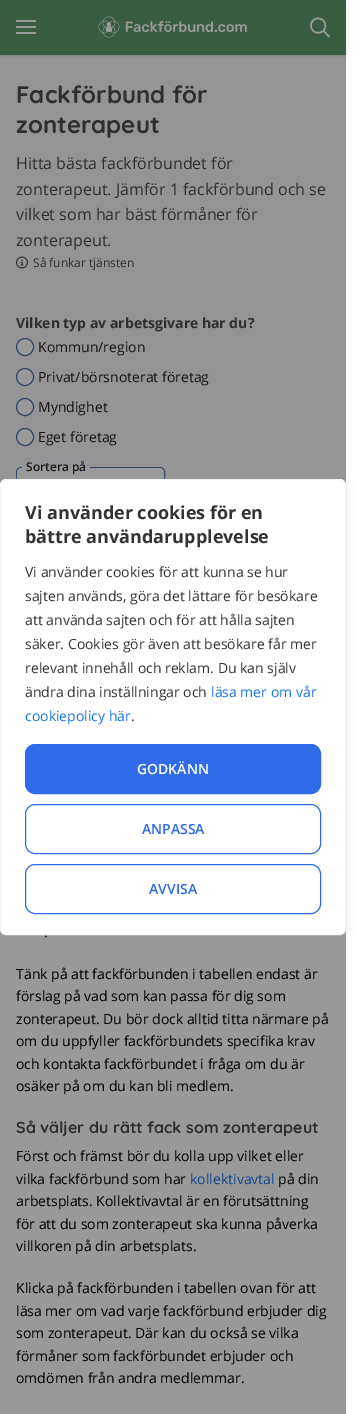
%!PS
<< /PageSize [361 1414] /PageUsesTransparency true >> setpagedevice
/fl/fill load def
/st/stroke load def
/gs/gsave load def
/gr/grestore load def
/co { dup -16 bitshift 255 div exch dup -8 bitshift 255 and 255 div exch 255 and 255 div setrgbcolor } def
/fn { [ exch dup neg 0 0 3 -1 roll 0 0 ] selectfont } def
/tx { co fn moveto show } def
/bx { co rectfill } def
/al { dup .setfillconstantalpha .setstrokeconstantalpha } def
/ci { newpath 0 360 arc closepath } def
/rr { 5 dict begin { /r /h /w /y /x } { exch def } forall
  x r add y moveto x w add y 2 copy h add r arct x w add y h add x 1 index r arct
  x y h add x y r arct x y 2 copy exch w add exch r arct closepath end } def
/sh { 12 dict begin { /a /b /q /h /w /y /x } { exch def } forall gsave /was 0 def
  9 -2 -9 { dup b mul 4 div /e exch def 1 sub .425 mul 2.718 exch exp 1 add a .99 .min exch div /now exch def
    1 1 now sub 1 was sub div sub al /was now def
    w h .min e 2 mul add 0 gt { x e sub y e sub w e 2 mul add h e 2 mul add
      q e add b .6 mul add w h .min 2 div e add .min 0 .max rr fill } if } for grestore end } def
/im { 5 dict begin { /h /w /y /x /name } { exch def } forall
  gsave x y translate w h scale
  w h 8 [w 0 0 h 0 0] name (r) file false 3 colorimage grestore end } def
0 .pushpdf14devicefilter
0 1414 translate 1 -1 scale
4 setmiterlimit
0 0 361 1414 16#FFFFFF bx
0 55 346 430 16#F8F7F6 bx
16#4A4E69 co
0 1 346 55 0 1.5 .16 sh
0 0 346 55 16#5F9B6D bx
16 20 20 2 16#FFFFFF bx
16 26 20 2 16#FFFFFF bx
16 32 20 2 16#FFFFFF bx
(media/1.raw) 98 16 149 22 im
(media/2.raw) 310 17 20 21 im
(media/3.raw) 16 256 12 13 im
25 347 8.5 ci gs fl gr
16#4D72B1 co
st
16#FFFFFF co
25 377 8.5 ci gs fl gr
16#4D72B1 co
st
16#FFFFFF co
25 407 8.5 ci gs fl gr
16#4D72B1 co
st
16#FFFFFF co
25 437 8.5 ci gs fl gr
16#4D72B1 co
st
22 457 68 10 16#F6F7FD bx
16#FFFFFF co
16.5 467.5 148 37 4.5 rr gs fl gr
16#4D72B1 co
st
22 467 68 1 16#FFFFFF bx
17 468 147 36 5 rr fl
(Fackförbund för) 16 103 /Quicksand-Bold 24 16#4E4E4E tx
(zonterapeut) 16 133 /Quicksand-Bold 24 16#4E4E4E tx
(Hitta bästa fackförbundet för) 16 169 /OpenSans-Regular 16 16#4E4E4E tx
(zonterapeut. Jämför 1 fackförbund och se) 16 195 /OpenSans-Regular 16 16#4E4E4E tx
(vilket som har bäst förmåner för) 16 220 /OpenSans-Regular 16 16#4E4E4E tx
(zonterapeut.) 16 246 /OpenSans-Regular 16 16#4E4E4E tx
(Så funkar tjänsten) 33 267 /OpenSans-Regular 12 16#4E4E4E tx
(Vilken typ av arbetsgivare har du?) 16 328 /OpenSans-Bold 14 16#4E4E4E tx
(Kommun/region) 38 352 /OpenSans-Regular 14 16#222222 tx
(Privat/börsnoterat företag) 38 382 /OpenSans-Regular 14 16#222222 tx
(Myndighet) 38 412 /OpenSans-Regular 14 16#222222 tx
(Eget företag) 38 442 /OpenSans-Regular 14 16#222222 tx
(Sortera på) 26 471 /OpenSans-SemiBold 12 16#222222 tx
(.) 44 937 /OpenSans-Regular 14 16#000000 tx
(Tänk på att fackförbunden i tabellen endast är) 16 979 /OpenSans-Regular 14 16#000000 tx
(förslag på vad som kan passa för dig som) 16 1001 /OpenSans-Regular 14 16#000000 tx
(zonterapeut. Du bör dock alltid titta närmare på) 16 1024 /OpenSans-Regular 14 16#000000 tx
(om du uppfyller fackförbundets specifika krav) 16 1046 /OpenSans-Regular 14 16#000000 tx
(och kontakta fackförbundet i fråga om du är) 16 1069 /OpenSans-Regular 14 16#000000 tx
(osäker på om du kan bli medlem.) 16 1091 /OpenSans-Regular 14 16#000000 tx
(Så väljer du rätt fack som zonterapeut) 16 1133 /Quicksand-Bold 16 16#4E4E4E tx
(Först och främst bör du kolla upp vilket eller) 16 1161 /OpenSans-Regular 14 16#000000 tx
(vilka fackförbund som har) 16 1184 /OpenSans-Regular 14 16#000000 tx
(kollektivavtal) 190 1184 /OpenSans-Regular 14 16#1A73E8 tx
(på din) 278 1184 /OpenSans-Regular 14 16#000000 tx
(arbetsplats. Kollektivavtal är en förutsättning) 16 1206 /OpenSans-Regular 14 16#000000 tx
(för att du som zonterapeut ska kunna påverka) 16 1229 /OpenSans-Regular 14 16#000000 tx
(villkoren på din arbetsplats.) 16 1251 /OpenSans-Regular 14 16#000000 tx
(Klicka på fackförbunden i tabellen ovan för att) 16 1293 /OpenSans-Regular 14 16#000000 tx
(läsa mer om vad varje fackförbund erbjuder dig) 16 1316 /OpenSans-Regular 14 16#000000 tx
(som zonterapeut. Där kan du också se vilka) 16 1338 /OpenSans-Regular 14 16#000000 tx
(förmåner som fackförbundet erbjuder och) 16 1361 /OpenSans-Regular 14 16#000000 tx
(omdömen från andra medlemmar.) 16 1383 /OpenSans-Regular 14 16#000000 tx
0.4 al
0 0 346 1414 16#000000 bx
1 al
16#ACABAB co
0 478 346 456 6 5 .3 sh
16#FFFFFF co
.5 479.5 345 455 5.5 rr gs fl gr
16#F4F4F4 co
st
(Vi använder cookies för en) 25 519 /OpenSans-Bold 18 16#333333 tx
(bättre användarupplevelse) 25 543 /OpenSans-Bold 18 16#333333 tx
(Vi använder cookies för att kunna se hur) 25 577 /OpenSans-Regular 14 16#333333 tx
(sajten används, göra det lättare för besökare) 25 601 /OpenSans-Regular 14 16#333333 tx
(att använda sajten och för att hålla sajten) 25 625 /OpenSans-Regular 14 16#333333 tx
(säker. Cookies gör även att besökare får mer) 25 649 /OpenSans-Regular 14 16#333333 tx
(relevant innehåll och reklam. Du kan själv) 25 673 /OpenSans-Regular 14 16#333333 tx
(ändra dina inställningar och) 25 697 /OpenSans-Regular 14 16#333333 tx
(läsa mer om vår) 211 697 /OpenSans-Regular 14 16#1A73E8 tx
(cookiepolicy här) 25 721 /OpenSans-Regular 14 16#1A73E8 tx
(.) 131 721 /OpenSans-Regular 14 16#333333 tx
16#306BEA co
25.5 744.5 295 49 9.5 rr gs fl gr
st
(GODKÄNN) 137 774 /OpenSans-SemiBold 14 16#FFFFFF tx
16#306BEA co
25.5 804.5 295 49 9.5 rr st
(ANPASSA) 142 834 /OpenSans-SemiBold 14 16#306BEA tx
25.5 864.5 295 49 9.5 rr st
(AVVISA) 149 894 /OpenSans-SemiBold 14 16#306BEA tx
.poppdf14devicefilter showpage
